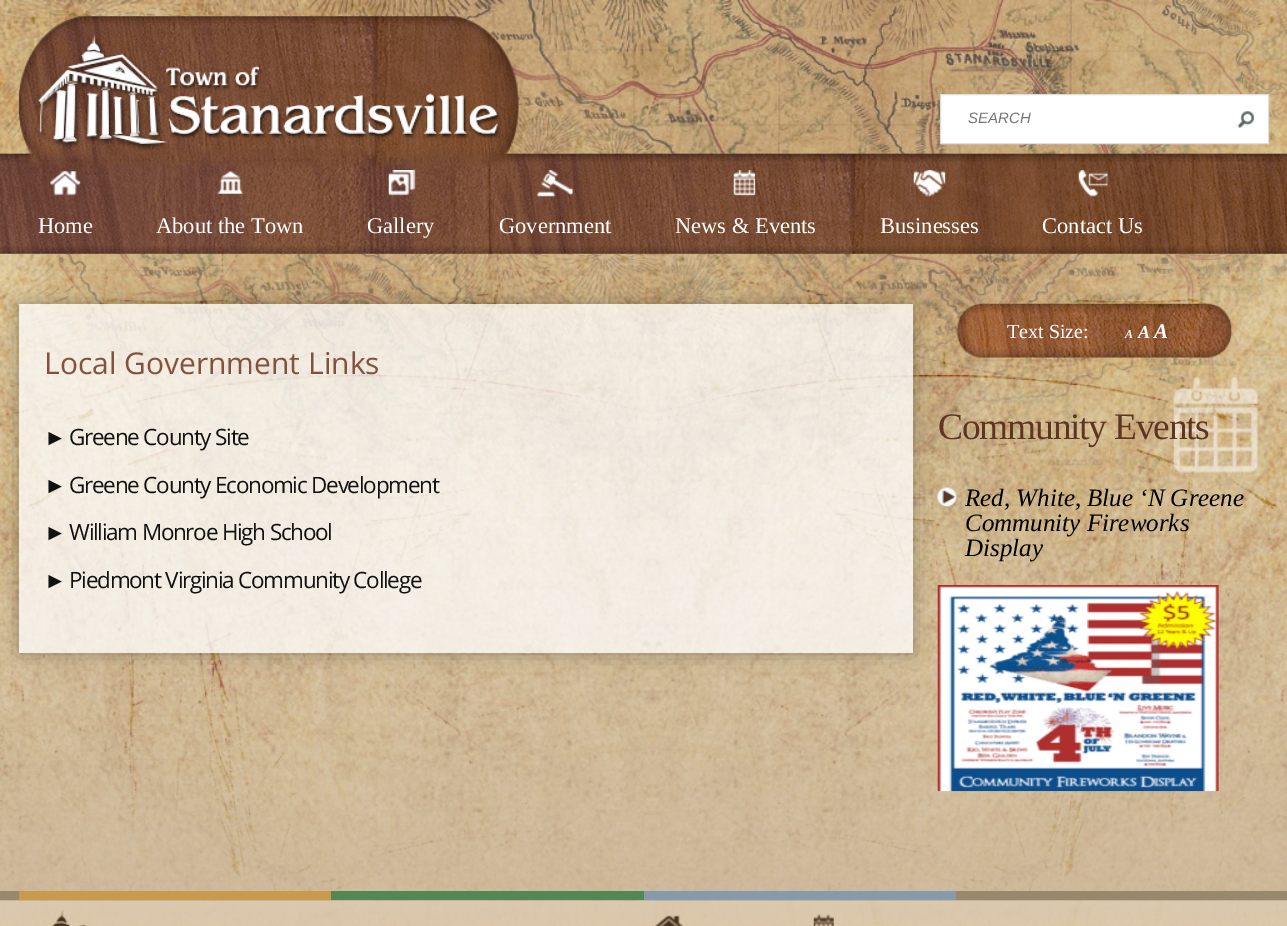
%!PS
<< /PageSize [1287 926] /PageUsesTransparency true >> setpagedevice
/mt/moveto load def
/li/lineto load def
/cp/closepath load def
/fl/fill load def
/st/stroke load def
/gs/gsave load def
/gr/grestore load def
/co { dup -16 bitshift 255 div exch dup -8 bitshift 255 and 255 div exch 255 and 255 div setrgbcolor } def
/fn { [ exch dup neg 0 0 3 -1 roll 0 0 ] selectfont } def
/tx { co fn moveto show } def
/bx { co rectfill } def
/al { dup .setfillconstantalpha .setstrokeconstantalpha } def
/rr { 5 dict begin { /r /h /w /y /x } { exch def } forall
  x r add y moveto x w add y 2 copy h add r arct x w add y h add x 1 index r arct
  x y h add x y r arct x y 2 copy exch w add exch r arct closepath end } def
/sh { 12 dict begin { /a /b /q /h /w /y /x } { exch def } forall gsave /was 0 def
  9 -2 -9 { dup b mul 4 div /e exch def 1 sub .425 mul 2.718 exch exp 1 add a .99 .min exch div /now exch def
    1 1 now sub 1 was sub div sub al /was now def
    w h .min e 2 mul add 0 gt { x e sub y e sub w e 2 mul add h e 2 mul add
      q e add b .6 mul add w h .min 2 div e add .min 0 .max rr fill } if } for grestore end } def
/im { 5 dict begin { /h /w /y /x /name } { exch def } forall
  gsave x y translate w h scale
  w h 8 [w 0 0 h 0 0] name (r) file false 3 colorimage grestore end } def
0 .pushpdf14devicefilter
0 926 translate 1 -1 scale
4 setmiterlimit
0 0 1287 926 16#FFFFFF bx
(media/1.raw) 0 900 1287 1 im
0 293 1287 598 16#CBB89C bx
(media/2.raw) 0 0 1287 891 im
(media/3.raw) 0 0 1287 603 im
(media/7.raw) 0 153 1287 101 im
(media/8.raw) 0 153 1287 9 im
(media/4.raw) 18 16 501 152 im
(media/5.raw) 38 35 462 115 im
16#FFFFFF co
940.5 94.5 mt 1268.5 94.5 li 1268.5 143.5 li 940.5 143.5 li cp gs fl gr
16#E0DDDD co
st
(media/6.raw) 1237 111 17 17 im
(media/9.raw) 49 171 32 25 im
(media/10.raw) 217 171 26 23 im
(media/11.raw) 388 170 28 26 im
(media/12.raw) 537 170 36 27 im
(media/13.raw) 733 170 23 26 im
(media/14.raw) 913 170 33 27 im
(media/15.raw) 1078 170 30 27 im
(media/16.raw) 0 246 1287 8 im
gs
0 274 mt 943 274 li 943 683 li 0 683 li cp 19 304 mt 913 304 li 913 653 li 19 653 li cp eoclip newpath
16#000000 co
19 304 894 349 0 9.5 .3 sh
gr
0.75 al
19 304 894 349 16#FFFFFF bx
1 al
(media/17.raw) 957 303 275 55 im
(media/18.raw) 1173 377 85 96 im
(media/19.raw) 937 487 20 20 im
(media/20.raw) 937 585 282 207 im
(media/21.raw) 0 900 1287 26 im
0 891 1287 9 16#9A886D bx
19 891 312 9 16#C89A4B bx
(media/22.raw) 52 910 35 16 im
331 891 313 9 16#538855 bx
644 891 312 9 16#859BAC bx
(media/23.raw) 655 915 28 11 im
(media/24.raw) 813 914 21 12 im
(SEARCH) 968 123 /LiberationSans-Italic 15 16#757575 tx
(Home) 38 233 /LiberationSerif-Regular 22.5 16#FFFFFF tx
(About the Town) 156 233 /LiberationSerif-Regular 22.5 16#FFFFFF tx
(Gallery) 367 233 /LiberationSerif-Regular 22.5 16#FFFFFF tx
(Government) 499 233 /LiberationSerif-Regular 22.5 16#FFFFFF tx
(News & Events) 675 233 /LiberationSerif-Regular 22.5 16#FFFFFF tx
(Businesses) 880 233 /LiberationSerif-Regular 22.5 16#FFFFFF tx
(Contact Us) 1042 233 /LiberationSerif-Regular 22.5 16#FFFFFF tx
(Local Government Links) 44 374 /OpenSans-Regular 30 16#83523E tx
/LiberationSans-Regular 22.5 fn
16#111111 co
44 445 mt -1.25 0 (►) ashow
/OpenSans-Regular 22.5 fn
69 445 mt -1.25 0 (Greene County Site) ashow
/LiberationSans-Regular 22.5 fn
44 493 mt -1.25 0 (►) ashow
/OpenSans-Regular 22.5 fn
69 493 mt -1.25 0 (Greene County Economic Development) ashow
/LiberationSans-Regular 22.5 fn
44 540 mt -1.25 0 (►) ashow
/OpenSans-Regular 22.5 fn
69 540 mt -1.25 0 (William Monroe High School) ashow
/LiberationSans-Regular 22.5 fn
44 588 mt -1.25 0 (►) ashow
/OpenSans-Regular 22.5 fn
69 588 mt -1.25 0 (Piedmont Virginia Community College) ashow
(Text Size:) 1007 338 /LiberationSerif-Regular 20 16#FFFFFF tx
(A) 1125 338 /LiberationSerif-BoldItalic 12 16#FFFFFF tx
(A) 1138 338 /LiberationSerif-BoldItalic 18 16#FFFFFF tx
(A) 1154 338 /LiberationSerif-BoldItalic 21 16#FFFFFF tx
/LiberationSerif-Regular 37.5 fn
16#5C3523 co
938 439 mt -1.25 0 (Community Events) ashow
(Red, White, Blue ‘N Greene) 965 506 /LiberationSerif-Italic 25 16#000000 tx
(Community Fireworks) 965 531 /LiberationSerif-Italic 25 16#000000 tx
(Display) 965 556 /LiberationSerif-Italic 25 16#000000 tx
.poppdf14devicefilter showpage
